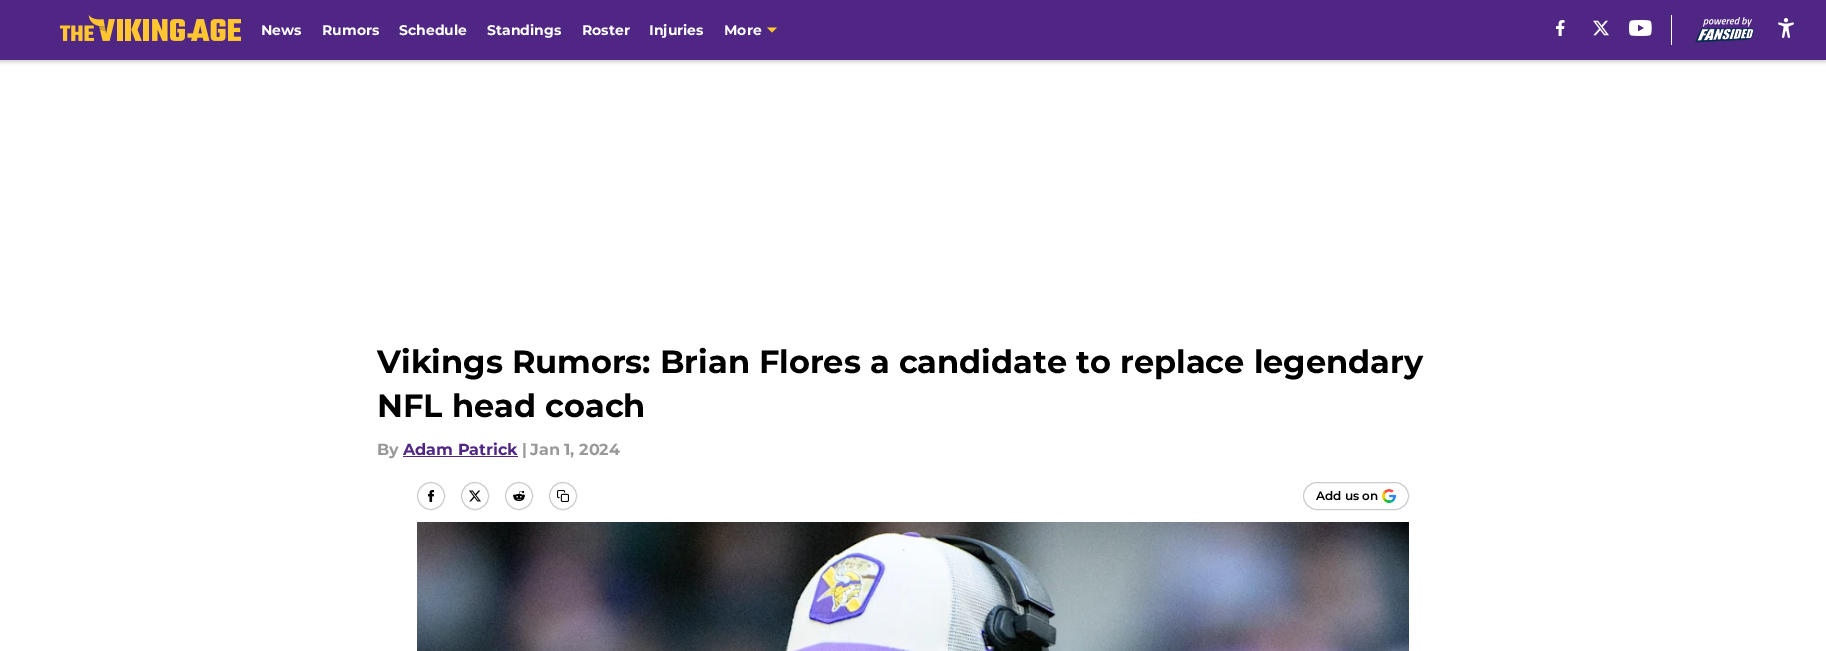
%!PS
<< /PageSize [1826 651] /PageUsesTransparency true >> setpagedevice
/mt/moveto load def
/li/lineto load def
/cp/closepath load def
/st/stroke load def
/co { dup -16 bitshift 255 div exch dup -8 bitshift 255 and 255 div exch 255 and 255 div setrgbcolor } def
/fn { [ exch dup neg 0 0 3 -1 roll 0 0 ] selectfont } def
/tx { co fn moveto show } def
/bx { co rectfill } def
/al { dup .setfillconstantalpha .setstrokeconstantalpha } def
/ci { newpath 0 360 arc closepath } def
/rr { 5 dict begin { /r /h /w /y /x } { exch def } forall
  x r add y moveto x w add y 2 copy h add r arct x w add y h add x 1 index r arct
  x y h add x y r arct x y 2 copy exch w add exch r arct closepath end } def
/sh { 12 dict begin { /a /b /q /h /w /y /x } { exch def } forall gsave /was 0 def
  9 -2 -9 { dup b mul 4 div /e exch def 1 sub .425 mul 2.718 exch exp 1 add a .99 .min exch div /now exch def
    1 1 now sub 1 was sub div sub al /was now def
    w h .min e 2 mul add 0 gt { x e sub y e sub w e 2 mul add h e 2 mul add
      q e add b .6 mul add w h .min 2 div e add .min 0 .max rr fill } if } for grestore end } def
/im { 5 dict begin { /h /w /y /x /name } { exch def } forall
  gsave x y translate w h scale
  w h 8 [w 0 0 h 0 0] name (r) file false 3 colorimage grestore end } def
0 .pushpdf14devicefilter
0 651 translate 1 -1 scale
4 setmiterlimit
0 0 1826 651 16#FFFFFF bx
16#000000 co
0 2 1826 60 0 2 .2 sh
0 0 1826 60 16#4F2683 bx
(media/1.raw) 60 15 181 26 im
16#FFC62F co
767 27.5 mt 772 32.5 li 777 27.5 li cp eofill
(media/2.raw) 1556 20 9 16 im
(media/3.raw) 1593 20 16 16 im
(media/4.raw) 1629 20 23 16 im
1671 15 1 30 16#FFFFFF bx
(media/5.raw) 1695 17 59 26 im
(media/6.raw) 1778 18 16 20 im
403 456 115 1 16#4F2683 bx
16#CCCCCC co
431 496 13.5 ci st
(media/7.raw) 427 490 8 12 im
475 496 13.5 ci st
(media/8.raw) 469 490 12 12 im
519 496 13.5 ci st
(media/9.raw) 513 490 12 12 im
563 496 13.5 ci st
(media/10.raw) 557 490 12 12 im
1303.5 482.5 105 27 13.5 rr st
(media/11.raw) 1382 489 14 14 im
(media/12.raw) 417 522 992 129 im
(News) 261 35 /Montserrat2-Thin 14 16#FFFFFF tx
(Rumors) 322 35 /Montserrat2-Thin 14 16#FFFFFF tx
(Schedule) 399 35 /Montserrat2-Thin 14 16#FFFFFF tx
(Standings) 487 35 /Montserrat2-Thin 14 16#FFFFFF tx
(Roster) 582 35 /Montserrat2-Thin 14 16#FFFFFF tx
(Injuries) 649 35 /Montserrat2-Thin 14 16#FFFFFF tx
(More) 724 35 /Montserrat2-Thin 14 16#FFFFFF tx
(Vikings Rumors: Brian Flores a candidate to replace legendary) 377 373 /Montserrat2-Thin 32 16#000000 tx
(NFL head coach) 377 417 /Montserrat2-Thin 32 16#000000 tx
(By) 377 455 /Montserrat2-Thin 16 16#999999 tx
(Adam Patrick) 403 455 /Montserrat2-Thin 16 16#4F2683 tx
(|) 522 455 /Montserrat2-Thin 16 16#999999 tx
(Jan 1, 2024) 530 455 /Montserrat2-Thin 16 16#999999 tx
(Add us on) 1316 500 /Montserrat-Thin 12 16#000000 tx
.poppdf14devicefilter showpage
